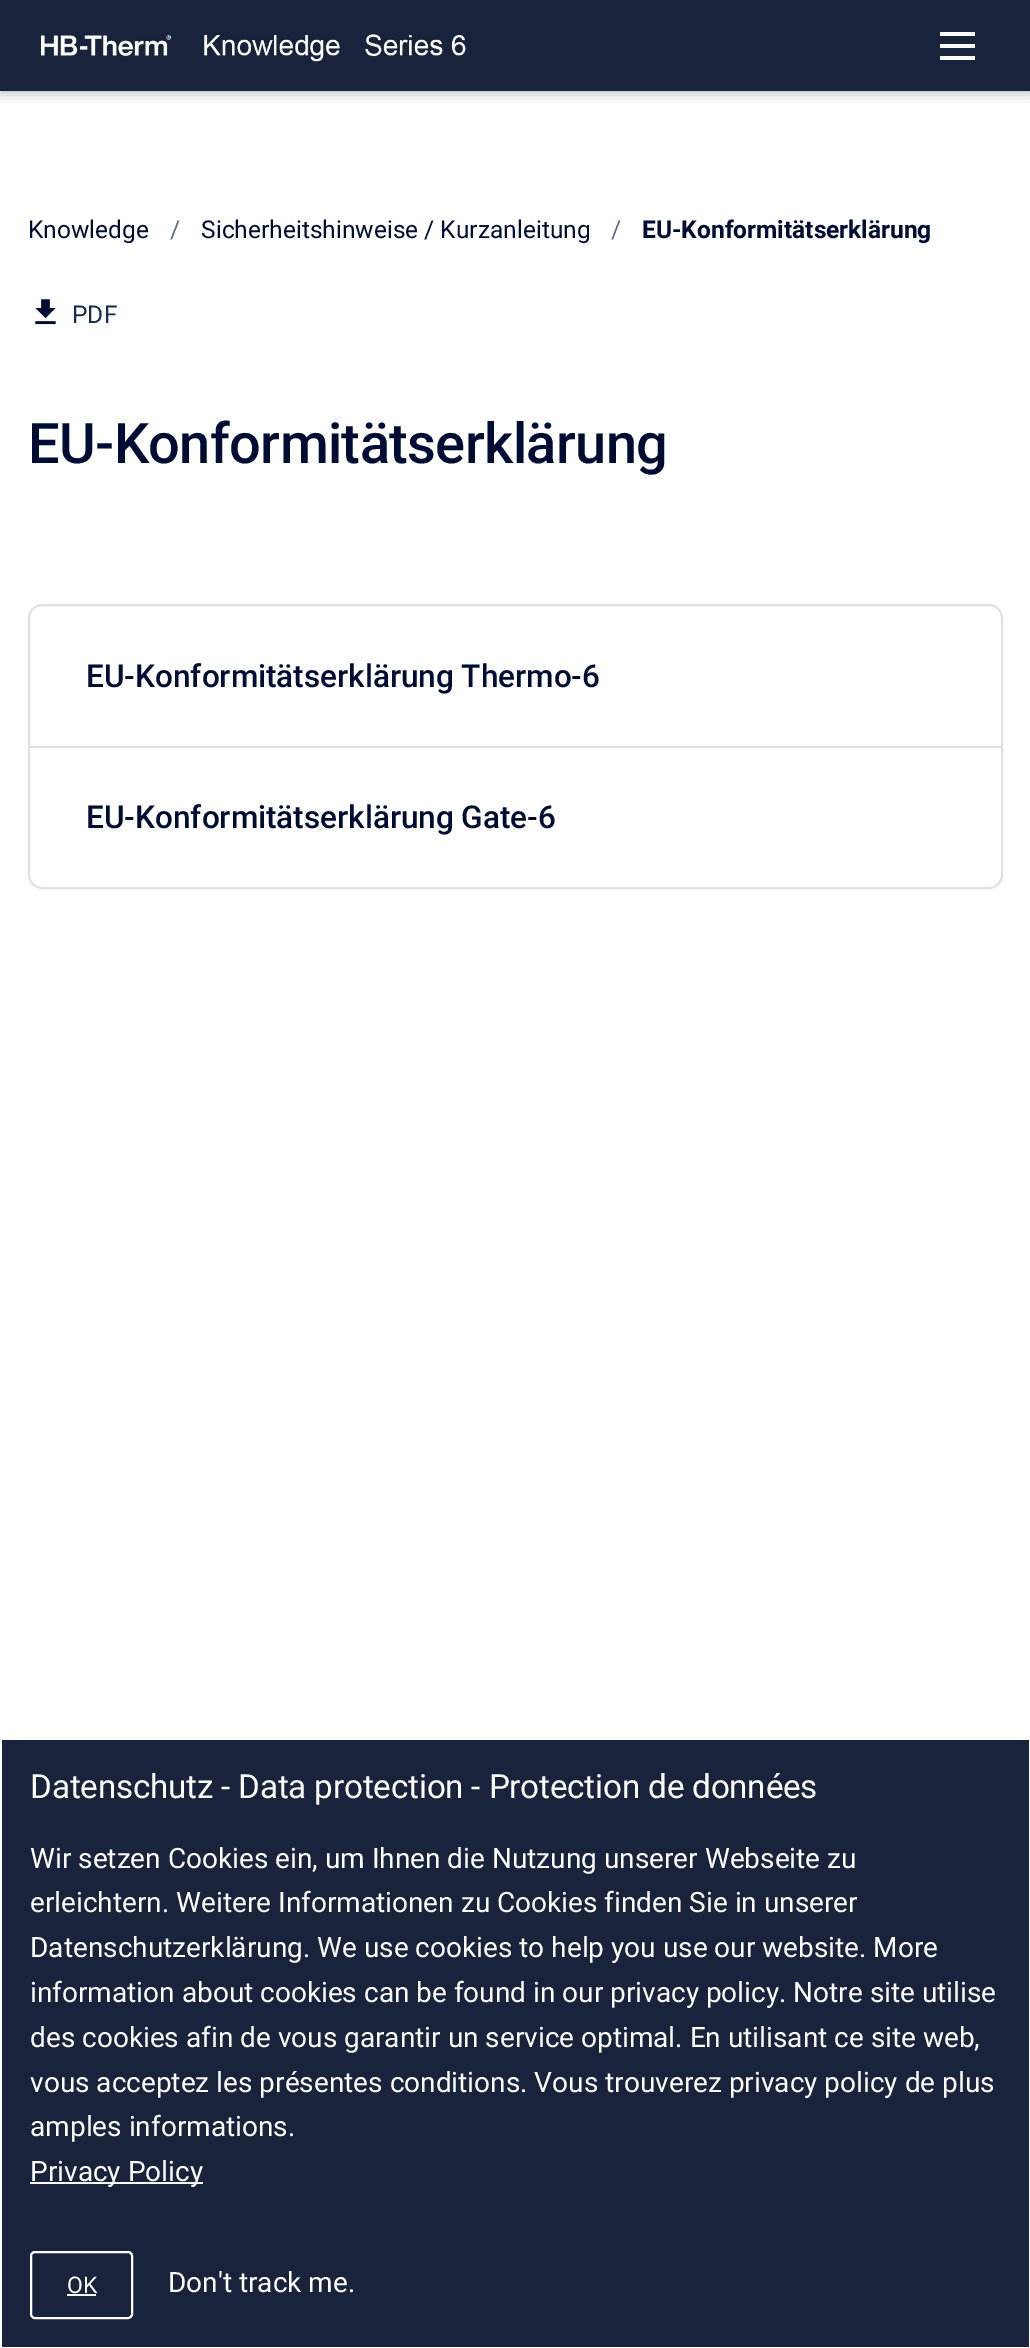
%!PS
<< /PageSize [1030 2348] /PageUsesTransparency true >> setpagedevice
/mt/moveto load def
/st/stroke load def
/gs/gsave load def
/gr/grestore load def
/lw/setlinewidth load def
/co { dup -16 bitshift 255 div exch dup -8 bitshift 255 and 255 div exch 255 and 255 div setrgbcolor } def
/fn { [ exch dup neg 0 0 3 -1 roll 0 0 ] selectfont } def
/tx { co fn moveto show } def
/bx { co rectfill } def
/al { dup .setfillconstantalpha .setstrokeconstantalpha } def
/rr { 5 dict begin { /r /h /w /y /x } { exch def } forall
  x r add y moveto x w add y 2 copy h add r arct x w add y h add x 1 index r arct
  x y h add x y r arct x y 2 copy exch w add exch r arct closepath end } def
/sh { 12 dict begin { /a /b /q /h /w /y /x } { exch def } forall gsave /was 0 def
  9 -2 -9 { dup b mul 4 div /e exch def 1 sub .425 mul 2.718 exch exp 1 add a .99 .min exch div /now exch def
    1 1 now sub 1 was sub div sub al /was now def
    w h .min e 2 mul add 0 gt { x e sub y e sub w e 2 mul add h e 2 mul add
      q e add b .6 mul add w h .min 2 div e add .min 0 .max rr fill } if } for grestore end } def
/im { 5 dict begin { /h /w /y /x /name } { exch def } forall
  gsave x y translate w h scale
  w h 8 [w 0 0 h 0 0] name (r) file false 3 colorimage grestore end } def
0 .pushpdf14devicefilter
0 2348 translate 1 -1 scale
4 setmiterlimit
0 0 1030 2348 16#FFFFFF bx
0 0 1030 91 16#19233C bx
gs
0 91 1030 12 rectclip
16#3B484F co
0 0 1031 91 0 7 .5 sh
gr
(media/1.raw) 41 34 425 28 im
940 56 35 4 16#FFFFFF bx
940 44 35 4 16#FFFFFF bx
940 32 35 4 16#FFFFFF bx
(media/2.raw) 35 299 21 26 im
16#DFE1E6 co
2 lw
29 605 973 283 13 rr st
30 746 971 2 16#DFE1E6 bx
2 1740 1027 607 16#19233C bx
30 2182 173 2 16#FFFFFF bx
31 2252 101 66 4 rr st
67 2294 29 2 16#FFFFFF bx
(Knowledge) 28 238 /Roboto-Regular 24.5 16#000C34 tx
(/) 170 238 /Roboto-Regular 24.5 16#5E6C84 tx
(Sicherheitshinweise / Kurzanleitung) 201 238 /Roboto-Regular 24.5 16#000C34 tx
(/) 611 238 /Roboto-Regular 24.5 16#5E6C84 tx
(EU-Konformitätserklärung) 642 238 /Roboto-Bold 24.5 16#000C34 tx
(PDF) 72 323 /Roboto-Regular 24.5 16#172B4D tx
/Roboto-Medium 56 fn
16#000C34 co
28 463 mt -.6 0 (EU-Konformitätserklärung) ashow
(EU-Konformitätserklärung Thermo-6) 86 687 /Roboto-Medium 31.5 16#000C34 tx
(EU-Konformitätserklärung Gate-6) 86 828 /Roboto-Medium 31.5 16#000C34 tx
/Roboto-Regular 33.25 fn
16#FFFFFF co
30 1798 mt -.2 0 (Datenschutz - Data protection - Protection de données) ashow
(Wir setzen Cookies ein, um Ihnen die Nutzung unserer Webseite zu) 30 1868 /Roboto-Regular 28 16#FFFFFF tx
(erleichtern. Weitere Informationen zu Cookies finden Sie in unserer) 30 1912 /Roboto-Regular 28 16#FFFFFF tx
(Datenschutzerklärung. We use cookies to help you use our website. More) 30 1957 /Roboto-Regular 28 16#FFFFFF tx
(information about cookies can be found in our privacy policy. Notre site utilise) 30 2002 /Roboto-Regular 28 16#FFFFFF tx
(des cookies afin de vous garantir un service optimal. En utilisant ce site web,) 30 2047 /Roboto-Regular 28 16#FFFFFF tx
(vous acceptez les présentes conditions. Vous trouverez privacy policy de plus) 30 2092 /Roboto-Regular 28 16#FFFFFF tx
(amples informations.) 30 2136 /Roboto-Regular 28 16#FFFFFF tx
(Privacy Policy) 30 2181 /Roboto-Regular 28 16#FFFFFF tx
(OK) 67 2293 /Roboto-Regular 23 16#FFFFFF tx
(Don't track me.) 168 2292 /Roboto-Regular 28 16#FFFFFF tx
.poppdf14devicefilter showpage
